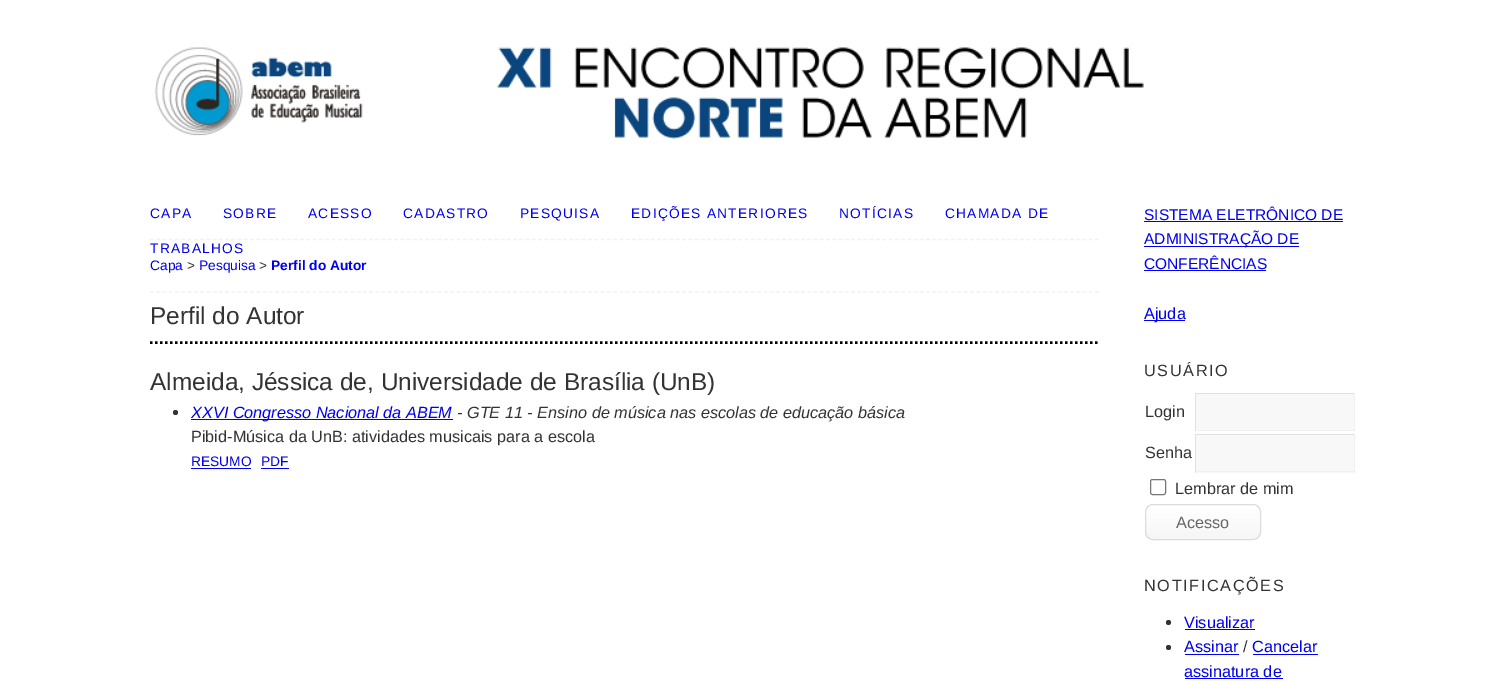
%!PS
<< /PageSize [1504 681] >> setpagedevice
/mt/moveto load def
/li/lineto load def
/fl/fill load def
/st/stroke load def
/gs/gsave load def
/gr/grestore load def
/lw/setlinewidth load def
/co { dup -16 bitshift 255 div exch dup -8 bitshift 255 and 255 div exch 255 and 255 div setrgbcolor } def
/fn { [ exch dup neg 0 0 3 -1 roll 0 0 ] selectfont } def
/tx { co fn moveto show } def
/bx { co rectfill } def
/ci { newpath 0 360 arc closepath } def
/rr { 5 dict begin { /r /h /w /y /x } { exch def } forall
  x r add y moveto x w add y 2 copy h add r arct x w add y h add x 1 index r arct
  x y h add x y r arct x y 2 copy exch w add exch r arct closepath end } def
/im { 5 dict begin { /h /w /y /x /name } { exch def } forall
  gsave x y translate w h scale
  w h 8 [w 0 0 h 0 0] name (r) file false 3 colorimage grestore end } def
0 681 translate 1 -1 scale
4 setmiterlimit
0 0 1504 681 16#FFFFFF bx
(media/1.raw) 155 47 989 92 im
16#F2F2F2 co
1.2 lw
[3.75 2.51] 0 setdash
150 239.5 mt 1099 239.5 li st
150 292 mt 1099 292 li st
16#000000 co
2.5 lw
[2.5 2.5] 0 setdash
150 342.5 mt 1099 342.5 li st
16#333333 co
175.5 412.5 2.5 ci fl
191 419 262 1 16#0000EE bx
191 468 60 1 16#0000EE bx
261 468 28 1 16#0000EE bx
1144 221 199 1 16#0000EE bx
1144 246 155 1 16#0000EE bx
1144 270 122 1 16#0000EE bx
1144 320 41 1 16#0000EE bx
1196 394 158 36 16#F8F8F8 bx
1195 393 160 1 16#E1E1E1 bx
1354 393 1 38 16#F0F0F0 bx
1195 430 160 1 16#F0F0F0 bx
1195 393 1 38 16#E1E1E1 bx
1196 435 158 38 16#F8F8F8 bx
1195 434 160 1 16#E1E1E1 bx
1354 434 1 39 16#F0F0F0 bx
1195 471 160 1 16#F0F0F0 bx
1195 434 1 39 16#E1E1E1 bx
16#767676 co
1 lw
[] 0 setdash
1150.5 479.5 15 15 2 rr st
gs 1146 505 114 34 6 rr clip newpath
<< /ShadingType 2 /ColorSpace /DeviceRGB /Coords [1146 505 1146 539] /Extend [true true] /Function << /FunctionType 3 /Domain [0 1] /Functions [<< /FunctionType 2 /Domain [0 1] /C0 [1 1 1] /C1 [1 1 1] /N 1 >> << /FunctionType 2 /Domain [0 1] /C0 [1 1 1] /C1 [.965 .965 .965] /N 1 >>] /Bounds [.05] /Encode [0 1 0 1] >> >> shfill gr
16#DCDCDC co
1145.5 504.5 115 35 7.5 rr st
16#333333 co
1168.5 622.5 2.5 ci fl
1185 629 70 1 16#0000EE bx
16#333333 co
1168.5 647.5 2.5 ci fl
1185 654 54 1 16#0000EE bx
1253 654 65 1 16#0000EE bx
1185 678 98 1 16#0000EE bx
/LiberationSans-Regular 13.75 fn
150 218 mt 1.25 0 (CAPA) ashow
223 218 mt 1.25 0 (SOBRE) ashow
308 218 mt 1.25 0 (ACESSO) ashow
403 218 mt 1.25 0 (CADASTRO) ashow
520 218 mt 1.25 0 (PESQUISA) ashow
631 218 mt 1.25 0 (EDIÇÕES ANTERIORES) ashow
839 218 mt 1.25 0 (NOTÍCIAS) ashow
945 218 mt 1.25 0 (CHAMADA DE) ashow
150 253 mt 1.25 0 (TRABALHOS) ashow
(Capa) 150 270 /LiberationSans-Regular 13.75 16#0000EE tx
(>) 187 270 /LiberationSans-Regular 13.75 16#333333 tx
(Pesquisa) 199 270 /LiberationSans-Regular 13.75 16#0000EE tx
(>) 259 270 /LiberationSans-Regular 13.75 16#333333 tx
(Perfil do Autor) 271 270 /LiberationSans-Bold 13.75 16#0000EE tx
(Perfil do Autor) 150 324 /LiberationSans-Regular 24.4 16#333333 tx
(Almeida, Jéssica de, Universidade de Brasília \(UnB\)) 150 390 /LiberationSans-Regular 24.4 16#333333 tx
(XXVI Congresso Nacional da ABEM) 191 418 /LiberationSans-Italic 16.25 16#0000EE tx
(- GTE 11 - Ensino de música nas escolas de educação básica) 457 418 /LiberationSans-Italic 16.25 16#333333 tx
(Pibid-Música da UnB: atividades musicais para a escola) 191 442 /LiberationSans-Regular 16.25 16#333333 tx
(RESUMO) 191 466 /LiberationSans-Regular 13.75 16#0000EE tx
(PDF) 261 466 /LiberationSans-Regular 13.75 16#0000EE tx
(SISTEMA ELETRÔNICO DE) 1144 220 /LiberationSans-Regular 15.5 16#0000EE tx
(ADMINISTRAÇÃO DE) 1144 244 /LiberationSans-Regular 15.5 16#0000EE tx
(CONFERÊNCIAS) 1144 269 /LiberationSans-Regular 15.5 16#0000EE tx
(Ajuda) 1144 319 /LiberationSans-Regular 16.25 16#0000EE tx
16#333333 co
1144 376 mt 1.6 0 (USUÁRIO) ashow
(Login) 1145 417 /LiberationSans-Regular 16.25 16#333333 tx
(Senha) 1145 458 /LiberationSans-Regular 16.25 16#333333 tx
(Lembrar de mim) 1175 494 /LiberationSans-Regular 16.25 16#333333 tx
(Acesso) 1176 528 /LiberationSans-Regular 16.25 16#666666 tx
16#333333 co
1144 591 mt 1.6 0 (NOTIFICAÇÕES) ashow
(Visualizar) 1184 628 /LiberationSans-Regular 16.25 16#0000EE tx
(Assinar) 1184 652 /LiberationSans-Regular 16.25 16#0000EE tx
(/) 1243 652 /LiberationSans-Regular 16.25 16#333333 tx
(Cancelar) 1252 652 /LiberationSans-Regular 16.25 16#0000EE tx
(assinatura de) 1184 677 /LiberationSans-Regular 16.25 16#0000EE tx
showpage
